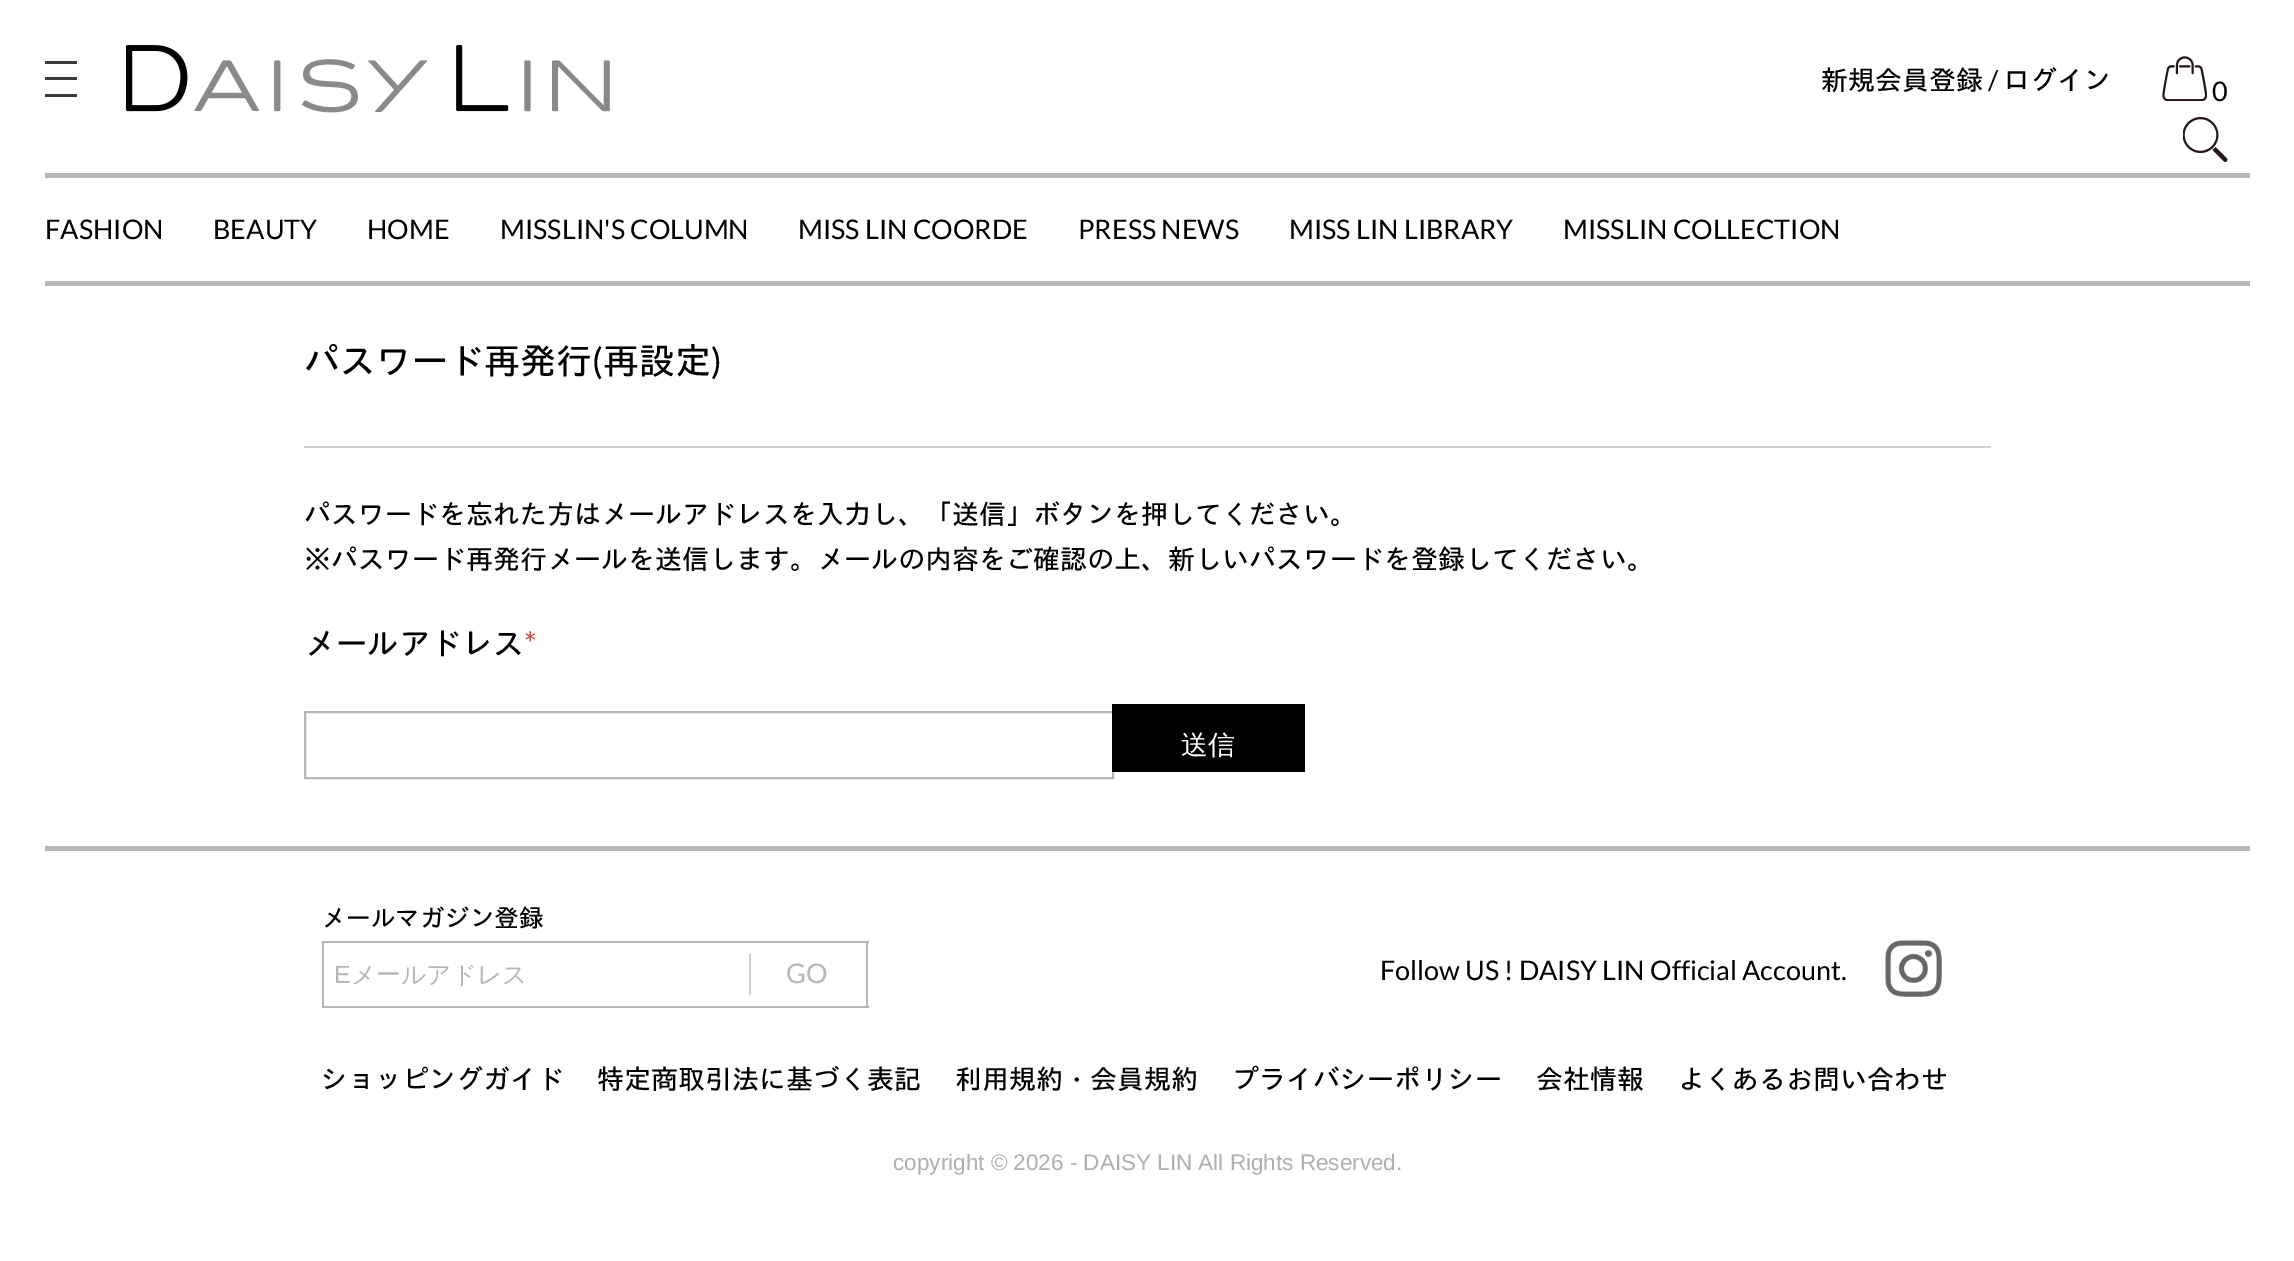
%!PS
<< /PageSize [2294 1261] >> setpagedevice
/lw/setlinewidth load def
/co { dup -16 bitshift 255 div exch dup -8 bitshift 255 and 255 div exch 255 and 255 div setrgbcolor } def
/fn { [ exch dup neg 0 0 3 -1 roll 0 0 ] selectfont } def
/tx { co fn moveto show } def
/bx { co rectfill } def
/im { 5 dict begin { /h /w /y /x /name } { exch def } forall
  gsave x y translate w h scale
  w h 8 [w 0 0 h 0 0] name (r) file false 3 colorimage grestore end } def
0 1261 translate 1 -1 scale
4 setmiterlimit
0 0 2294 1261 16#FFFFFF bx
45 61 32 3 16#3E3A39 bx
45 77 32 3 16#3E3A39 bx
45 94 32 3 16#3E3A39 bx
(media/1.raw) 126 45 484 68 im
(media/2.raw) 2162 56 45 45 im
(media/3.raw) 2183 117 45 45 im
45 173 2205 5 16#B5B6B6 bx
45 281 2205 5 16#B5B6B6 bx
304 446 1687 2 16#CDCECE bx
16#B5B6B6 co
2 lw
305 712 808 66 rectstroke
1112 704 193 68 16#000000 bx
45 846 2205 5 16#B5B6B6 bx
322 941 547 2 16#B5B6B6 bx
322 1006 427 2 16#B5B6B6 bx
322 941 2 67 16#B5B6B6 bx
749 954 2 41 16#CCCCCC bx
866 941 2 67 16#B5B6B6 bx
749 1006 120 2 16#B5B6B6 bx
(media/4.raw) 1885 940 57 57 im
(新規会員登録) 1821 90 /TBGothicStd-Medium 27 16#000000 tx
(/) 1988 90 /Lato-Regular 27 16#000000 tx
(ログイン) 2003 90 /TBGothicStd-Medium 27 16#000000 tx
(0) 2212 101 /Lato-Regular 27 16#000000 tx
(FASHION) 45 239 /Lato-Regular 27 16#000000 tx
(BEAUTY) 213 239 /Lato-Regular 27 16#000000 tx
(HOME) 367 239 /Lato-Regular 27 16#000000 tx
(MISSLIN'S COLUMN) 500 239 /Lato-Regular 27 16#000000 tx
(MISS LIN COORDE) 798 239 /Lato-Regular 27 16#000000 tx
(PRESS NEWS) 1078 239 /Lato-Regular 27 16#000000 tx
(MISS LIN LIBRARY) 1289 239 /Lato-Regular 27 16#000000 tx
(MISSLIN COLLECTION) 1563 239 /Lato-Regular 27 16#000000 tx
(パスワード再発行) 304 374 /TBGothicStd-Medium 36 16#000000 tx
(\() 592 374 /Lato-Regular 36 16#000000 tx
(再設定) 603 374 /TBGothicStd-Medium 36 16#000000 tx
(\)) 711 374 /Lato-Regular 36 16#000000 tx
(パスワードを忘れた方はメールアドレスを入力し、「送信」ボタンを押してください。) 304 524 /TBGothicStd-Medium 27 16#000000 tx
(※パスワード再発行メールを送信します。メールの内容をご確認の上、新しいパスワードを登録してください。) 304 569 /TBGothicStd-Medium 27 16#000000 tx
(メールアドレス) 304 655 /TBGothicStd-Medium 31.5 16#000000 tx
(*) 524 655 /Lato-Regular 31.5 16#BE4D3E tx
(送信) 1181 754 /WenQuanYiZenHei-Medium 27 16#FFFFFF tx
(メールマガジン登録) 321 927 /TBGothicStd-Medium 24.75 16#000000 tx
(E) 334 983 /LiberationSans-Regular 24.75 16#B5B6B6 tx
(メールアドレス) 351 983 /WenQuanYiZenHei-Medium 24.75 16#B5B6B6 tx
(GO) 786 983 /Lato-Regular 27 16#B5B6B6 tx
(Follow US ! DAISY LIN Official Account.) 1380 980 /Lato-Regular 27 16#000000 tx
(ショッピングガイド) 321 1089 /TBGothicStd-Medium 27 16#000000 tx
(特定商取引法に基づく表記) 597 1089 /TBGothicStd-Medium 27 16#000000 tx
(利用規約) 955 1089 /TBGothicStd-Medium 27 16#000000 tx
(・) 1063 1089 /WenQuanYiZenHei-Medium 27 16#000000 tx
(会員規約) 1090 1089 /TBGothicStd-Medium 27 16#000000 tx
(プライバシーポリシー) 1232 1089 /TBGothicStd-Medium 27 16#000000 tx
(会社情報) 1536 1089 /TBGothicStd-Medium 27 16#000000 tx
(よくあるお問い合わせ) 1678 1089 /TBGothicStd-Medium 27 16#000000 tx
(copyright © 2026 - DAISY LIN All Rights Reserved.) 893 1170 /LiberationSans-Regular 22.5 16#AFAFAF tx
showpage
